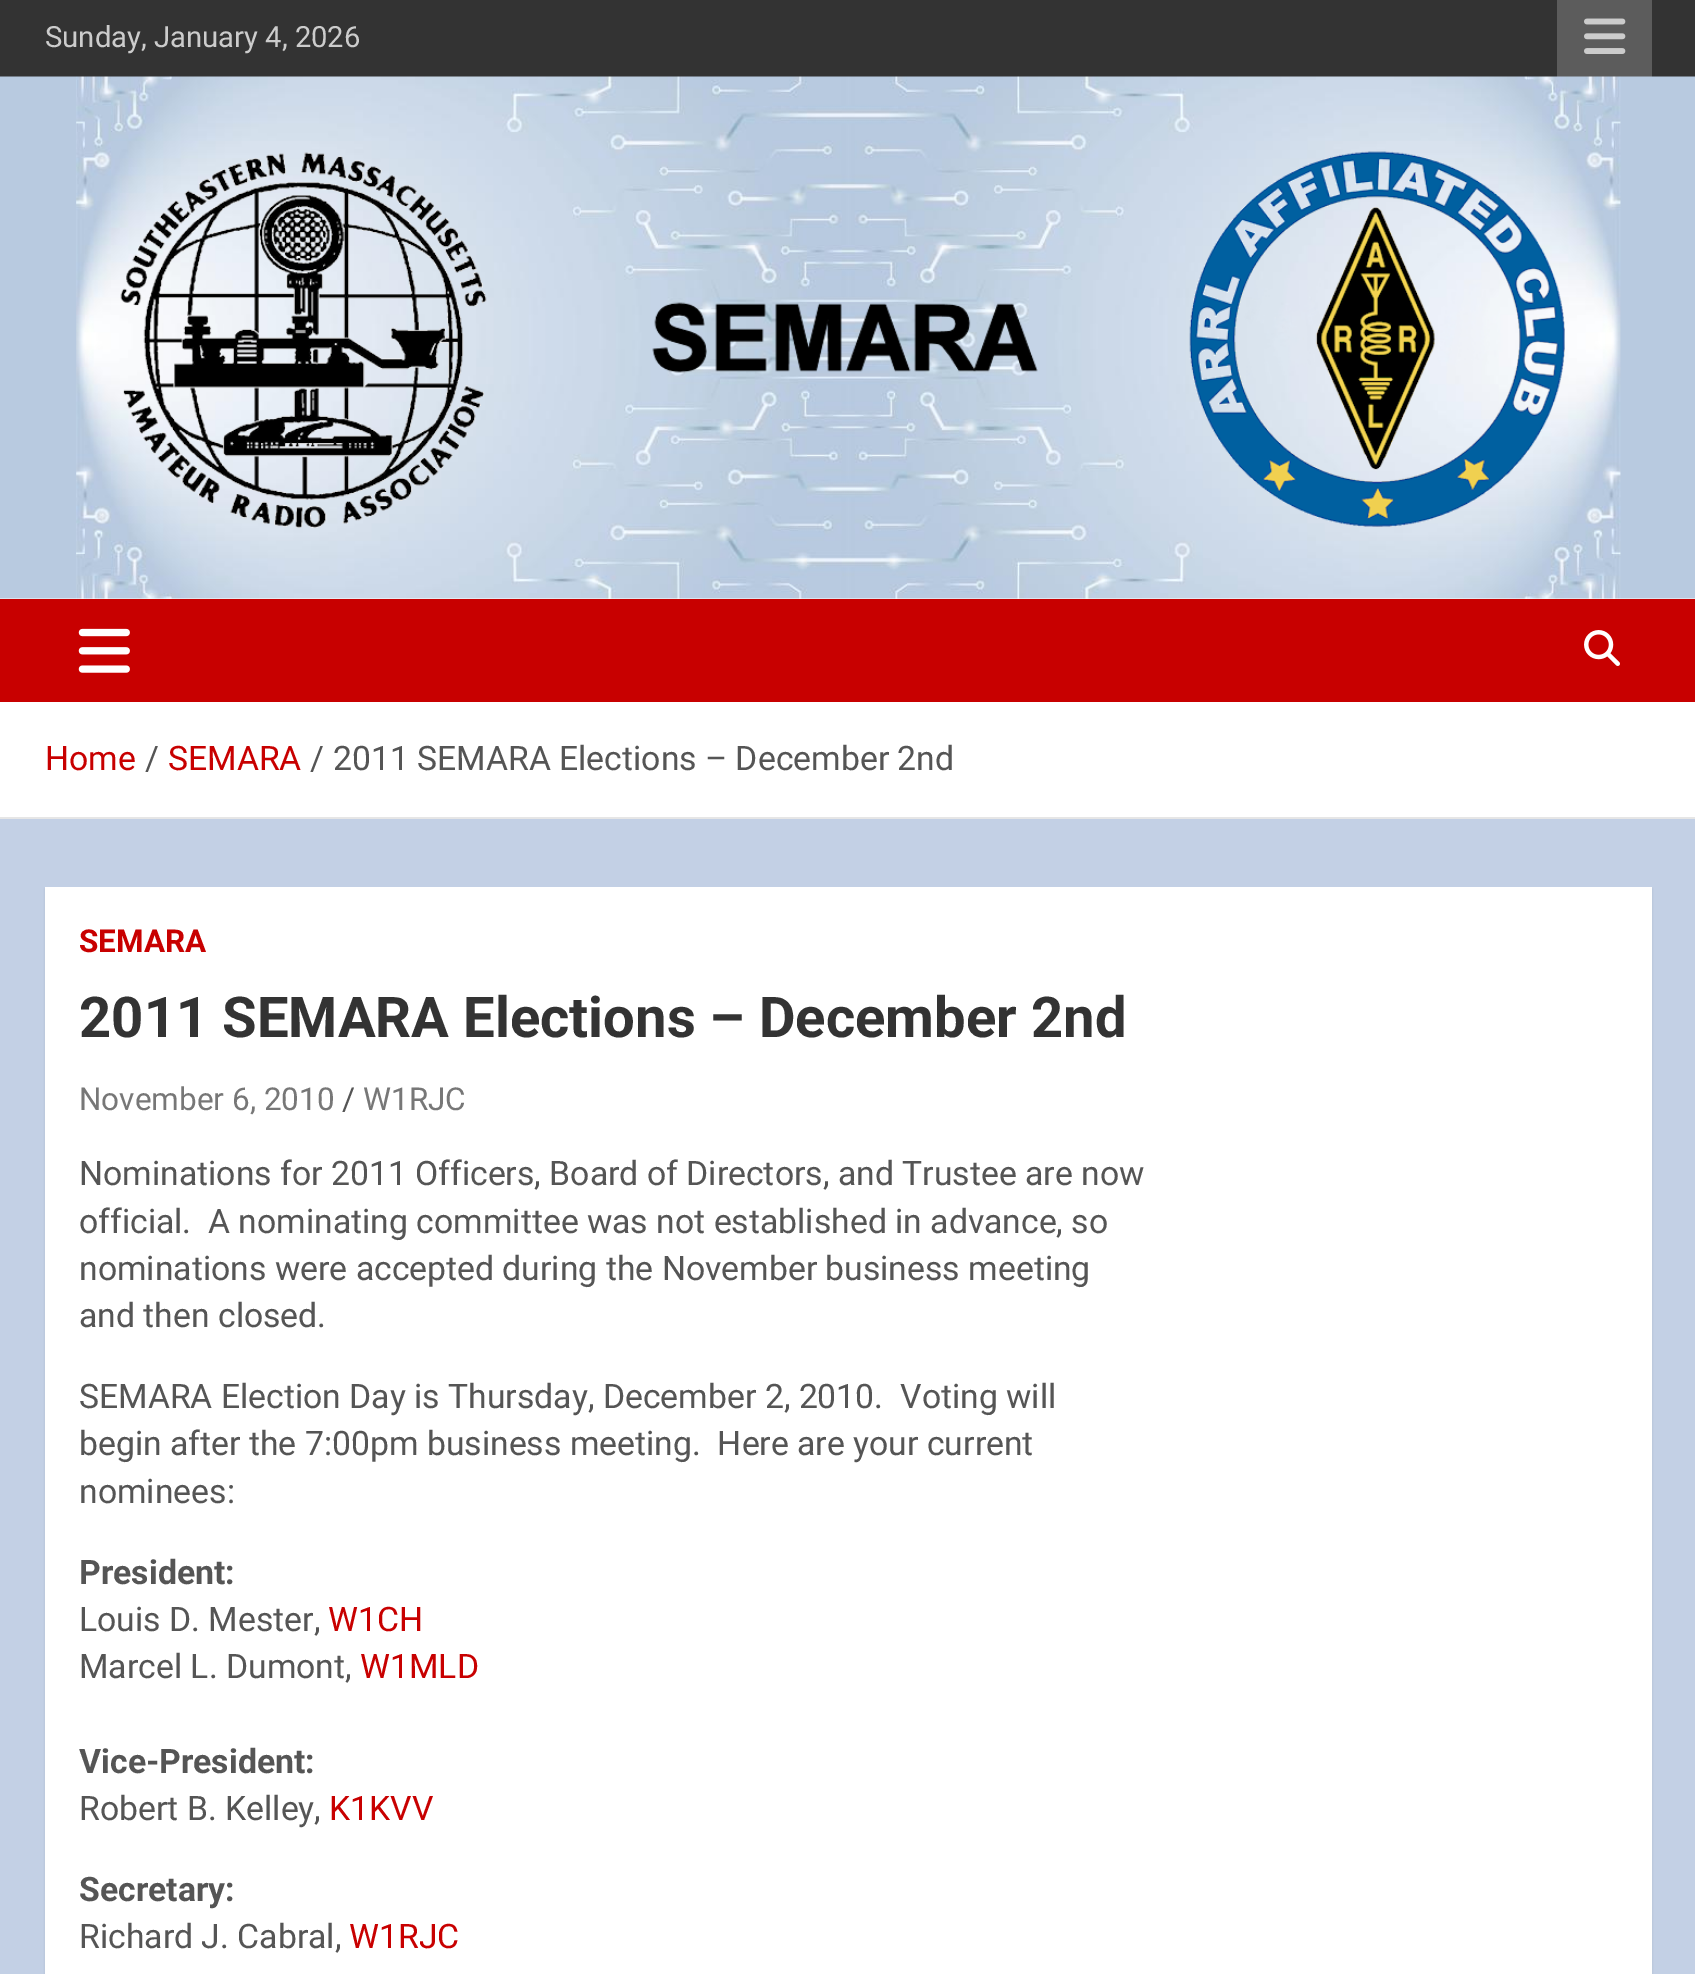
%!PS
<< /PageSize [1695 1974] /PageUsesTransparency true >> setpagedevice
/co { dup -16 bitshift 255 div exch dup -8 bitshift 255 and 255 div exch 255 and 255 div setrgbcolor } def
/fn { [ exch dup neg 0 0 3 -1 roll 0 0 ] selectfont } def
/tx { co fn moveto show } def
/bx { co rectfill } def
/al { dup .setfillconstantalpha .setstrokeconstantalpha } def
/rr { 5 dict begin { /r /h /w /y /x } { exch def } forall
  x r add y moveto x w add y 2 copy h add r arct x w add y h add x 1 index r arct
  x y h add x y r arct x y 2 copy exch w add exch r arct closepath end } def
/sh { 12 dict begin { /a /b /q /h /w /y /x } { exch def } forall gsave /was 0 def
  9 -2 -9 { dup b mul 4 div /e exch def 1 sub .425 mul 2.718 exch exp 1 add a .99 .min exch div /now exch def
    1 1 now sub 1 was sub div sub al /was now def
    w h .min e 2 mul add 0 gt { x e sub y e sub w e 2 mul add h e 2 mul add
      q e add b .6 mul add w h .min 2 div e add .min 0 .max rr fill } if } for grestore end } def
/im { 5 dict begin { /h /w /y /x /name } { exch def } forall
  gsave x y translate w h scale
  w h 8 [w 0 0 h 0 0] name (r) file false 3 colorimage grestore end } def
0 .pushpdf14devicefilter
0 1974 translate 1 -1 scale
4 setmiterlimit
0 0 1695 1974 16#C3D0E5 bx
0 0 1695 77 16#333333 bx
1557 0 95 77 16#5C5C5C bx
(media/1.raw) 1584 18 42 36 im
0 598 1695 1 16#FFFFFF bx
(media/2.raw) 0 76 1695 523 im
0 599 1695 103 16#C80000 bx
(media/3.raw) 78 628 52 45 im
(media/4.raw) 1584 630 36 36 im
0 702 1695 115 16#FFFFFF bx
0 817 1695 2 16#E6E6E6 bx
16#000000 co
45 889 1607 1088 0 1 .1 sh
45 887 1607 1087 16#FFFFFF bx
(Sunday, January 4, 2026) 45 47 /Roboto-Regular 29.25 16#CCCCCC tx
(Home) 45 770 /Roboto-Regular 33.75 16#C80000 tx
(/) 145 770 /Roboto-Regular 33.75 16#555555 tx
(SEMARA) 168 770 /Roboto-Regular 33.75 16#C80000 tx
(/) 310 770 /Roboto-Regular 33.75 16#555555 tx
(2011 SEMARA Elections – December 2nd) 333 770 /Roboto-Regular 33.75 16#555555 tx
(SEMARA) 79 952 /Roboto-Bold 31.5 16#C80000 tx
(2011 SEMARA Elections – December 2nd) 79 1037 /Roboto-Bold 56.25 16#333333 tx
(November 6, 2010) 79 1110 /Roboto-Regular 31.5 16#777777 tx
(/) 342 1110 /Roboto-Regular 31.5 16#555555 tx
(W1RJC) 363 1110 /Roboto-Regular 31.5 16#777777 tx
(Nominations for 2011 Officers, Board of Directors, and Trustee are now) 79 1185 /Roboto-Regular 33.75 16#555555 tx
(official.  A nominating committee was not established in advance, so) 79 1233 /Roboto-Regular 33.75 16#555555 tx
(nominations were accepted during the November business meeting) 79 1280 /Roboto-Regular 33.75 16#555555 tx
(and then closed.) 79 1327 /Roboto-Regular 33.75 16#555555 tx
(SEMARA Election Day is Thursday, December 2, 2010.  Voting will) 79 1408 /Roboto-Regular 33.75 16#555555 tx
(begin after the 7:00pm business meeting.  Here are your current) 79 1455 /Roboto-Regular 33.75 16#555555 tx
(nominees:) 79 1503 /Roboto-Regular 33.75 16#555555 tx
(President:) 79 1584 /Roboto-Bold 33.75 16#555555 tx
(Louis D. Mester,) 79 1631 /Roboto-Regular 33.75 16#555555 tx
(W1CH) 328 1631 /Roboto-Regular 33.75 16#C80000 tx
(Marcel L. Dumont,) 79 1678 /Roboto-Regular 33.75 16#555555 tx
(W1MLD) 360 1678 /Roboto-Regular 33.75 16#C80000 tx
(Vice-President:) 79 1773 /Roboto-Bold 33.75 16#555555 tx
(Robert B. Kelley,) 79 1820 /Roboto-Regular 33.75 16#555555 tx
(K1KVV) 329 1820 /Roboto-Regular 33.75 16#C80000 tx
(Secretary:) 79 1901 /Roboto-Bold 33.75 16#555555 tx
(Richard J. Cabral,) 79 1948 /Roboto-Regular 33.75 16#555555 tx
(W1RJC) 349 1948 /Roboto-Regular 33.75 16#C80000 tx
.poppdf14devicefilter showpage
